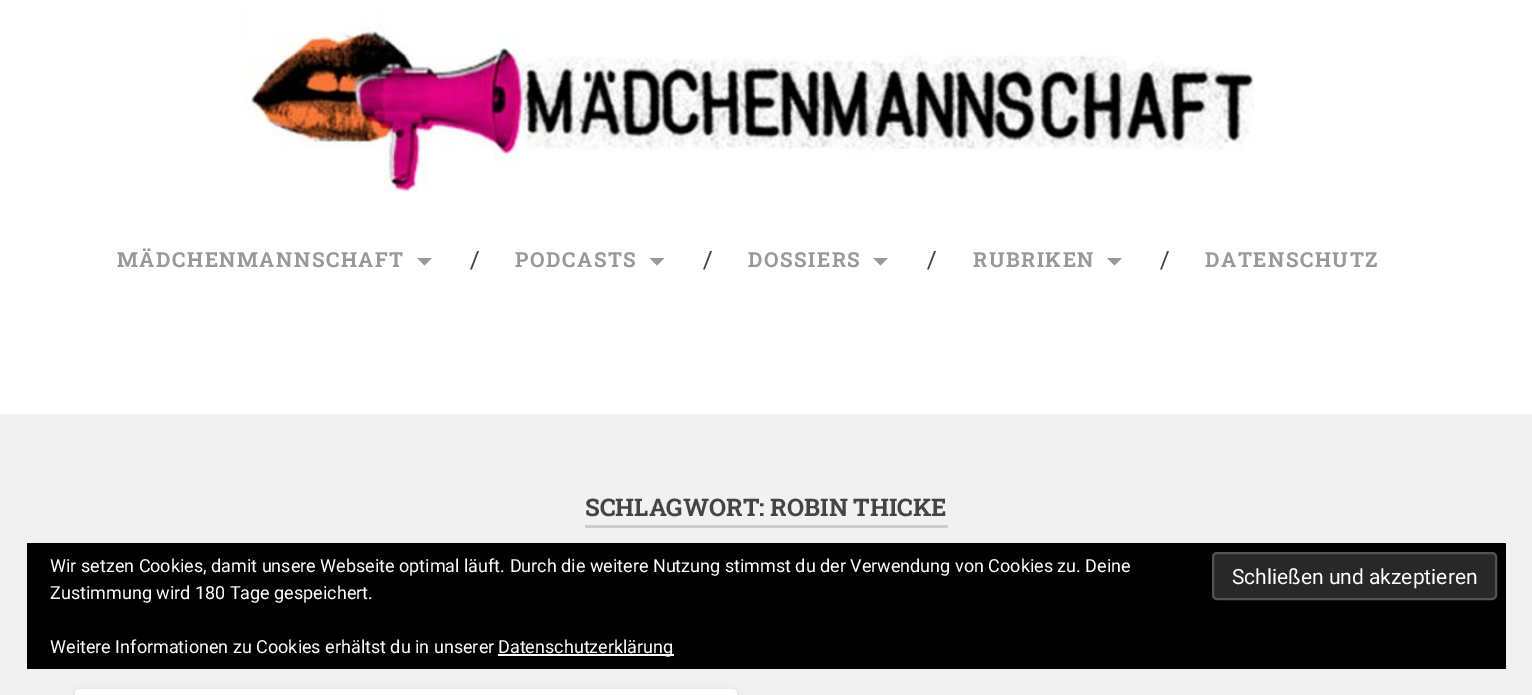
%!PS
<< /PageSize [1532 695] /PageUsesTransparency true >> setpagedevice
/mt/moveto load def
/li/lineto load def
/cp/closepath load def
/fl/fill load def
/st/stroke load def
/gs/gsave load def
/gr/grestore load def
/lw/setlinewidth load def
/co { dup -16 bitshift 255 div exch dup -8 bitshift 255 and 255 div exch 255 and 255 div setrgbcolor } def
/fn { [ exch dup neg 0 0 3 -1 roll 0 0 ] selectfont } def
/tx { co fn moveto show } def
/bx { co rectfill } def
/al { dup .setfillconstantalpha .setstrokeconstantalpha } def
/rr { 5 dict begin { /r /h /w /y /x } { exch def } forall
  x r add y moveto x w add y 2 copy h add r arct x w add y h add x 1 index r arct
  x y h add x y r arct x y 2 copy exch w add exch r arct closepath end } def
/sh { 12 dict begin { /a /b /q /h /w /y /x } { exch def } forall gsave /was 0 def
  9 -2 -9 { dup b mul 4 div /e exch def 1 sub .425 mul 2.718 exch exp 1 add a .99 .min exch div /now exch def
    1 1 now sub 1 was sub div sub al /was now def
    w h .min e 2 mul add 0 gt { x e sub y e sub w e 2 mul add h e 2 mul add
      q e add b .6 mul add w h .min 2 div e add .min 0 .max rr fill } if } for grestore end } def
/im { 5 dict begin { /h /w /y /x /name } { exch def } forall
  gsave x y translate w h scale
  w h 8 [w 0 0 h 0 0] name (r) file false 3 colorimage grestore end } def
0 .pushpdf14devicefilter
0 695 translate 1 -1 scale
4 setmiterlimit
0 0 1532 695 16#F1F1F1 bx
0 0 1532 414 16#FFFFFF bx
(media/1.raw) 245 4 1010 188 im
16#999999 co
417 258 mt 432 258 li 424.5 265.5 li cp fl
649.5 258 mt 664.5 258 li 657 265.5 li cp fl
873 258 mt 888 258 li 880.5 265.5 li cp fl
1107 258 mt 1122 258 li 1114.5 265.5 li cp fl
585 525 363 3 16#CCCCCC bx
16#000000 co
75 690 662 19 5 3 .1 sh
16#FFFFFF co
75 689 662 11 5 rr fl
27 543 1479 126 16#000000 bx
16#282828 co
1213 553 283 46 4 rr gs fl gr
16#535353 co
2 lw
st
498 654 176 2 16#FFFFFF bx
/RobotoSlab-Bold 20.7 fn
16#999999 co
117 267 mt 1.5 0 (MÄDCHENMANNSCHAFT) ashow
(/) 470 268 /RobotoSlab-Regular 24 16#444444 tx
/RobotoSlab-Bold 20.7 fn
16#999999 co
515 267 mt 1.5 0 (PODCASTS) ashow
(/) 703 268 /RobotoSlab-Regular 24 16#444444 tx
/RobotoSlab-Bold 20.7 fn
16#999999 co
748 267 mt 1.5 0 (DOSSIERS) ashow
(/) 927 268 /RobotoSlab-Regular 24 16#444444 tx
/RobotoSlab-Bold 20.7 fn
16#999999 co
973 267 mt 1.5 0 (RUBRIKEN) ashow
(/) 1160 268 /RobotoSlab-Regular 24 16#444444 tx
/RobotoSlab-Bold 20.7 fn
16#999999 co
1205 267 mt 1.5 0 (DATENSCHUTZ) ashow
(SCHLAGWORT: ROBIN THICKE) 585 516 /RobotoSlab-Bold 24.25 16#444444 tx
(Wir setzen Cookies, damit unsere Webseite optimal läuft. Durch die weitere Nutzung stimmst du der Verwendung von Cookies zu. Deine) 50 572 /Roboto-Regular 18 16#FFFFFF tx
(Schließen und akzeptieren) 1232 584 /Roboto-Regular 21 16#FFFFFF tx
(Zustimmung wird 180 Tage gespeichert.) 50 599 /Roboto-Regular 18 16#FFFFFF tx
(Weitere Informationen zu Cookies erhältst du in unserer) 50 653 /Roboto-Regular 18 16#FFFFFF tx
(Datenschutzerklärung) 498 653 /Roboto-Regular 18 16#FFFFFF tx
.poppdf14devicefilter showpage
